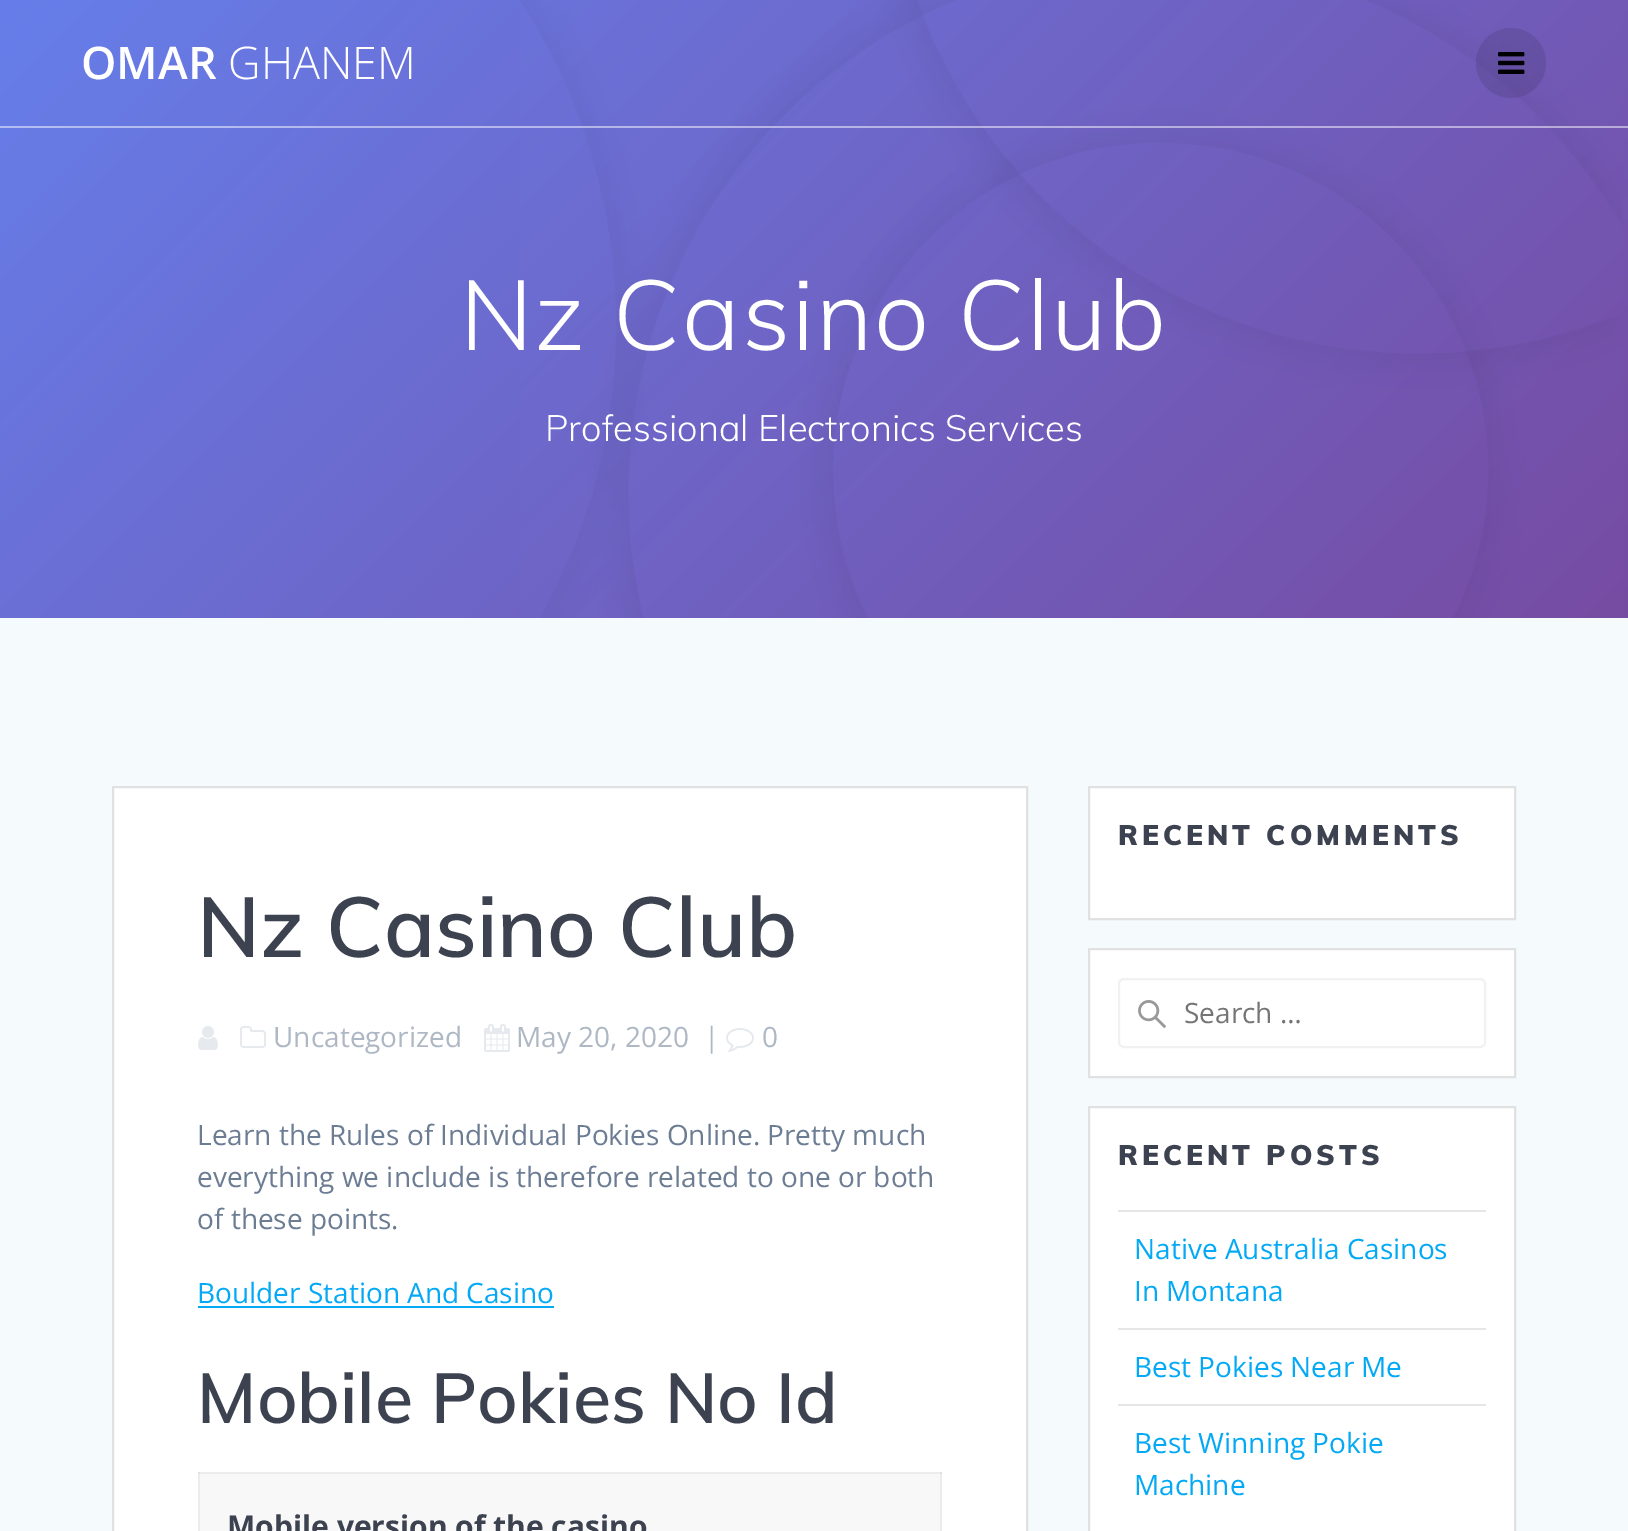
%!PS
<< /PageSize [1628 1531] /PageUsesTransparency true >> setpagedevice
/mt/moveto load def
/li/lineto load def
/cp/closepath load def
/fl/fill load def
/st/stroke load def
/gs/gsave load def
/gr/grestore load def
/lw/setlinewidth load def
/co { dup -16 bitshift 255 div exch dup -8 bitshift 255 and 255 div exch 255 and 255 div setrgbcolor } def
/fn { [ exch dup neg 0 0 3 -1 roll 0 0 ] selectfont } def
/tx { co fn moveto show } def
/bx { co rectfill } def
/al { dup .setfillconstantalpha .setstrokeconstantalpha } def
/ci { newpath 0 360 arc closepath } def
/rr { 5 dict begin { /r /h /w /y /x } { exch def } forall
  x r add y moveto x w add y 2 copy h add r arct x w add y h add x 1 index r arct
  x y h add x y r arct x y 2 copy exch w add exch r arct closepath end } def
/im { 5 dict begin { /h /w /y /x /name } { exch def } forall
  gsave x y translate w h scale
  w h 8 [w 0 0 h 0 0] name (r) file false 3 colorimage grestore end } def
0 .pushpdf14devicefilter
0 1531 translate 1 -1 scale
4 setmiterlimit
0 0 1628 1531 16#FFFFFF bx
gs 0 0 mt 1628 0 li 1628 618 li 0 618 li cp clip newpath
<< /ShadingType 2 /ColorSpace /DeviceRGB /Coords [253 -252 1376 870] /Extend [true true] /Function << /FunctionType 2 /Domain [0 1] /C0 [.4 .494 .918] /C1 [.463 .294 .635] /N 1 >> >> shfill gr
(media/2.raw) 520 0 1103 618 im
0.5 al
0 126 1628 2 16#FFFFFF bx
0.1 al
16#000000 co
1511 63 35 ci fl
1 al
(media/1.raw) 1498 52 27 22 im
0 618 1628 913 16#F5FAFD bx
16#FFFFFF co
113 787 mt 1027 787 li 1027 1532 li 113 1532 li cp gs fl gr
16#E0E1E1 co
2 lw
st
(media/3.raw) 198 1026 20 24 im
(media/4.raw) 240 1026 26 22 im
(media/5.raw) 484 1024 26 28 im
(media/6.raw) 726 1028 28 24 im
198 1306 356 2 16#03A9F4 bx
200 1474 740 57 16#F8F8F8 bx
198 1472 2 59 16#ECECEC bx
940 1472 2 59 16#ECECEC bx
198 1472 744 2 16#ECECEC bx
198 1472 2 2 16#E0E0E0 bx
940 1472 2 2 16#E0E0E0 bx
16#FFFFFF co
1089 787 mt 1515 787 li 1515 919 li 1089 919 li cp gs fl gr
16#E0E1E1 co
st
16#FFFFFF co
1089 949 mt 1515 949 li 1515 1077 li 1089 1077 li cp gs fl gr
16#E0E1E1 co
st
(media/7.raw) 1138 1000 28 28 im
16#F1F1F1 co
1119 979 366 68 5 rr st
16#FFFFFF co
1089 1107 mt 1515 1107 li 1515 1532 li 1089 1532 li cp gs fl gr
16#E0E1E1 co
st
1118 1210 368 2 16#E6E6E6 bx
1118 1328 368 2 16#E6E6E6 bx
1118 1404 368 2 16#E6E6E6 bx
(OMAR) 81 79 /OpenSans-SemiBold 45 16#FFFFFF tx
(GHANEM) 228 79 /OpenSans-Light 45 16#FFFFFF tx
/Muli-Light 98 fn
460 350 mt 1.75 0 (Nz Casino Club) ashow
(Professional Electronics Services) 545 441 /Muli-Light 36.4 16#FFFFFF tx
(Nz Casino Club) 197 957 /Muli-SemiBold 84 16#3C424F tx
(Uncategorized) 273 1047 /OpenSans-Regular 28 16#AEB7C4 tx
(May 20, 2020) 516 1047 /OpenSans-Regular 28 16#AEB7C4 tx
(|) 704 1047 /OpenSans-Regular 28 16#AEB7C4 tx
(0) 762 1047 /OpenSans-Regular 28 16#AEB7C4 tx
(Learn the Rules of Individual Pokies Online. Pretty much) 197 1145 /OpenSans-Regular 28 16#6B7C93 tx
(everything we include is therefore related to one or both) 197 1187 /OpenSans-Regular 28 16#6B7C93 tx
(of these points.) 197 1229 /OpenSans-Regular 28 16#6B7C93 tx
(Boulder Station And Casino) 197 1303 /OpenSans-Regular 28 16#03A9F4 tx
(Mobile Pokies No Id) 197 1423 /Muli-SemiBold 70 16#3C424F tx
(Mobile version of the casino) 227 1537 /OpenSans-Bold 30 16#3C424F tx
/Muli-Black 28 fn
1118 845 mt 4 0 (RECENT COMMENTS) ashow
(Search …) 1184 1023 /OpenSans-Regular 28 16#757575 tx
/Muli-Black 28 fn
16#3C424F co
1118 1165 mt 4 0 (RECENT POSTS) ashow
(Native Australia Casinos) 1134 1259 /OpenSans-Regular 28 16#03A9F4 tx
(In Montana) 1134 1301 /OpenSans-Regular 28 16#03A9F4 tx
(Best Pokies Near Me) 1134 1377 /OpenSans-Regular 28 16#03A9F4 tx
(Best Winning Pokie) 1134 1453 /OpenSans-Regular 28 16#03A9F4 tx
(Machine) 1134 1495 /OpenSans-Regular 28 16#03A9F4 tx
.poppdf14devicefilter showpage
